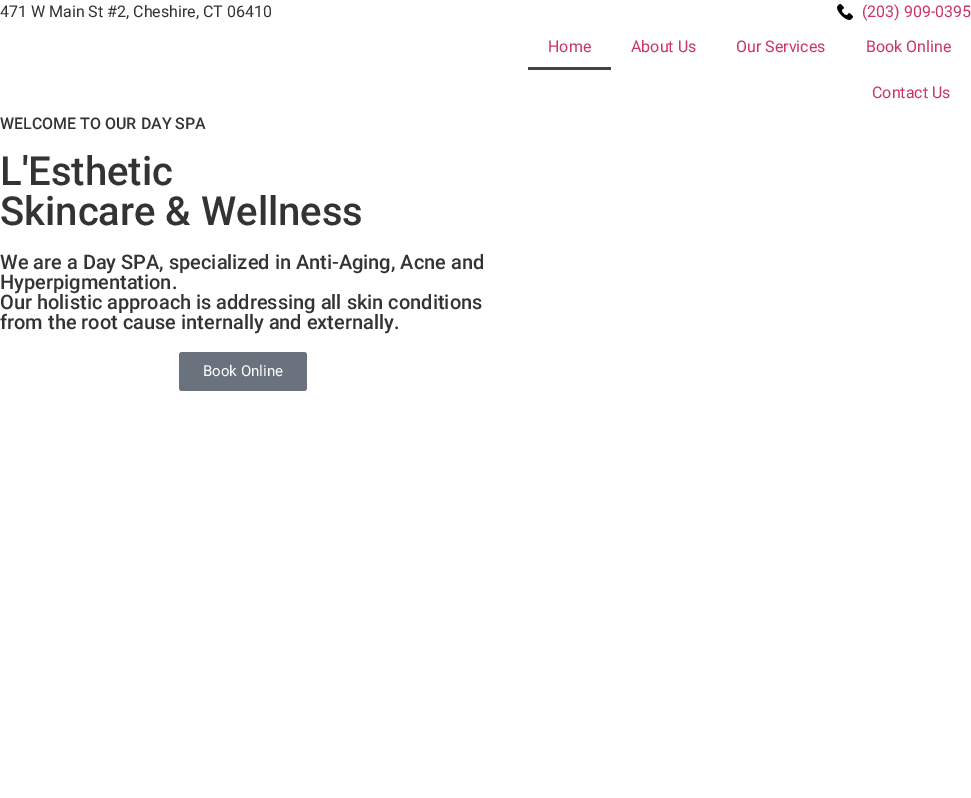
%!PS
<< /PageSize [971 798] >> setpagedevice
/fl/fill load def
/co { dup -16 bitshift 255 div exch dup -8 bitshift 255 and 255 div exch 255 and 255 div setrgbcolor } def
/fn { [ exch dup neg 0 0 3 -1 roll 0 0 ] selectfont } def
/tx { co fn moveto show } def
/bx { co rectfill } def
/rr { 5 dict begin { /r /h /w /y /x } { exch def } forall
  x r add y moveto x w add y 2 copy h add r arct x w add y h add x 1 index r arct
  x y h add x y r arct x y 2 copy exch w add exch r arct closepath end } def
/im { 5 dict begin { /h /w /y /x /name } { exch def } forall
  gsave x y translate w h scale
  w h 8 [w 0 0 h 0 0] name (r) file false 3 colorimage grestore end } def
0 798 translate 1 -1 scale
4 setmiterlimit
0 0 971 798 16#FFFFFF bx
(media/1.raw) 837 4 16 16 im
528 67 83 3 16#3F444B bx
16#69727D co
179 352 128 39 3 rr fl
(471 W Main St #2, Cheshire, CT 06410) 0 17 /Roboto-Regular 16 16#333333 tx
(\(203\) 909-0395) 862 17 /Roboto-Regular 16 16#CC3366 tx
(Home) 548 52 /Roboto-Regular 16 16#CC3366 tx
(About Us) 631 52 /Roboto-Regular 16 16#CC3366 tx
(Our Services) 736 52 /Roboto-Regular 16 16#CC3366 tx
(Book Online) 866 52 /Roboto-Regular 16 16#CC3366 tx
(Contact Us) 872 98 /Roboto-Regular 16 16#CC3366 tx
(WELCOME TO OUR DAY SPA) 0 129 /Roboto-Medium 16 16#333333 tx
(L'Esthetic) 0 185 /Roboto-Medium 40 16#333333 tx
(Skincare & Wellness) 0 225 /Roboto-Medium 40 16#333333 tx
(We are a Day SPA, specialized in Anti-Aging, Acne and) 0 269 /Roboto-Medium 20 16#333333 tx
(Hyperpigmentation.) 0 289 /Roboto-Medium 20 16#333333 tx
(Our holistic approach is addressing all skin conditions) 0 309 /Roboto-Medium 20 16#333333 tx
(from the root cause internally and externally.) 0 329 /Roboto-Medium 20 16#333333 tx
(Book Online) 203 376 /Roboto-Regular 15 16#FFFFFF tx
showpage
